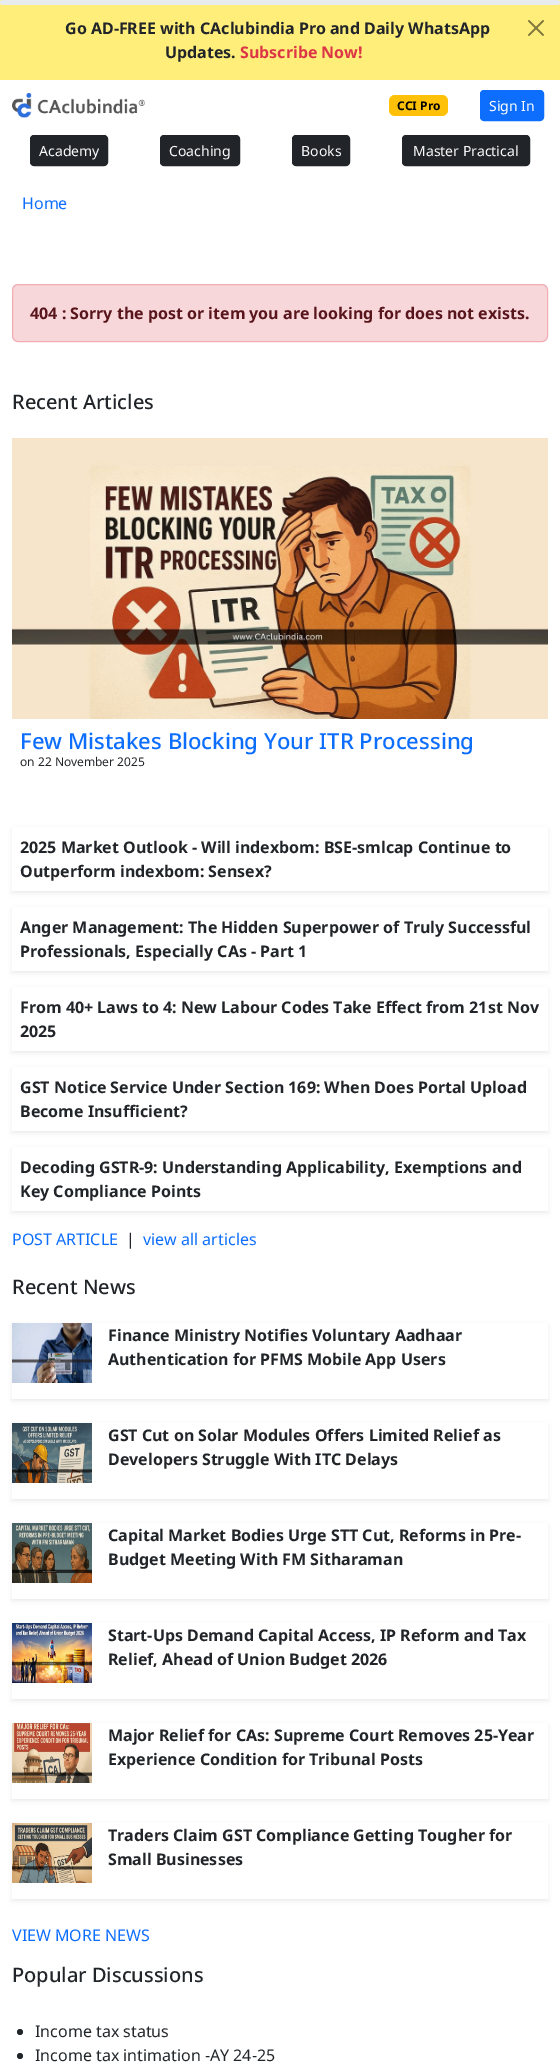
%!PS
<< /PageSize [560 2068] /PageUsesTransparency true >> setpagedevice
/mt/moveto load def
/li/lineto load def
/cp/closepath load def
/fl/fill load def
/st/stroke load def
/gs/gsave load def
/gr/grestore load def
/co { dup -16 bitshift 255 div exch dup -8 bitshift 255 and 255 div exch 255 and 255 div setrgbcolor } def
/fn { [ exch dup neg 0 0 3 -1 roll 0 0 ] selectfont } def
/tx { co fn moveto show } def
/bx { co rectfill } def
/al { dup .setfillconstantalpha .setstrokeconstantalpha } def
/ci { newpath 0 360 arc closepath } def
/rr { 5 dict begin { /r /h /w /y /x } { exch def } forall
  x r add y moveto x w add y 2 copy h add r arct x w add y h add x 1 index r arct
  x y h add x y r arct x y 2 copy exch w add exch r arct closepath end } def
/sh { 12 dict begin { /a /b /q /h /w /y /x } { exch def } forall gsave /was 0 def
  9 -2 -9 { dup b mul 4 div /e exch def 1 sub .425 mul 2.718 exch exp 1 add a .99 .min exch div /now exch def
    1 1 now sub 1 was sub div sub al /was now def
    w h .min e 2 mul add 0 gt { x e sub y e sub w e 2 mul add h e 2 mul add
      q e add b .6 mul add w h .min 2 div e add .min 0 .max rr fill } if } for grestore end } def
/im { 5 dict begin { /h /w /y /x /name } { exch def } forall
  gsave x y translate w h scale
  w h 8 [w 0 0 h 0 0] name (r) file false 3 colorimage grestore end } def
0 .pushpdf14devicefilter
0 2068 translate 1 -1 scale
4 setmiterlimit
0 0 560 2068 16#FFFFFF bx
0 0 560 80 16#FFEF7A bx
(media/1.raw) 528 20 16 16 im
(media/2.raw) 12 93 133 25 im
16#FFC107 co
389 95 59 21 6 rr fl
16#0D6EFD co
480.5 90.5 63 30 3.5 rr gs fl gr
st
16#212529 co
30.5 135.5 77 30 3.5 rr gs fl gr
st
160.5 135.5 79 30 3.5 rr gs fl gr
st
292.5 135.5 57 30 3.5 rr gs fl gr
st
402.5 135.5 127 30 3.5 rr gs fl gr
st
16#E9ECEF co
0 0 560 5 2.5 rr fl
16#F8D7DA co
12.5 284.5 535 57 5.5 rr gs fl gr
16#F1AEB5 co
st
(media/3.raw) 12 438 536 281 im
gs
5 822 mt 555 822 li 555 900 li 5 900 li cp 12 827 mt 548 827 li 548 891 li 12 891 li cp eoclip newpath
16#000000 co
12 829 536 64 0 2 .07 sh
gr
gs
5 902 mt 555 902 li 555 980 li 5 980 li cp 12 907 mt 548 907 li 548 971 li 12 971 li cp eoclip newpath
16#000000 co
12 909 536 64 0 2 .07 sh
gr
gs
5 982 mt 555 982 li 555 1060 li 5 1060 li cp 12 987 mt 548 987 li 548 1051 li 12 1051 li cp eoclip newpath
16#000000 co
12 989 536 64 0 2 .07 sh
gr
gs
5 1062 mt 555 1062 li 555 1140 li 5 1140 li cp 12 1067 mt 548 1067 li 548 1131 li 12 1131 li cp eoclip newpath
16#000000 co
12 1069 536 64 0 2 .07 sh
gr
gs
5 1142 mt 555 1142 li 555 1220 li 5 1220 li cp 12 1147 mt 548 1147 li 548 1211 li 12 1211 li cp eoclip newpath
16#000000 co
12 1149 536 64 0 2 .07 sh
gr
gs
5 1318 mt 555 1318 li 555 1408 li 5 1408 li cp 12 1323 mt 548 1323 li 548 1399 li 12 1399 li cp eoclip newpath
16#000000 co
12 1325 536 76 0 2 .07 sh
gr
(media/4.raw) 12 1323 80 60 im
gs
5 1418 mt 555 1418 li 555 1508 li 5 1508 li cp 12 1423 mt 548 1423 li 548 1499 li 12 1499 li cp eoclip newpath
16#000000 co
12 1425 536 76 0 2 .07 sh
gr
(media/5.raw) 12 1423 80 60 im
gs
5 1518 mt 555 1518 li 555 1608 li 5 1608 li cp 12 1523 mt 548 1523 li 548 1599 li 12 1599 li cp eoclip newpath
16#000000 co
12 1525 536 76 0 2 .07 sh
gr
(media/6.raw) 12 1523 80 60 im
gs
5 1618 mt 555 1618 li 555 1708 li 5 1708 li cp 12 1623 mt 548 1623 li 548 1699 li 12 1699 li cp eoclip newpath
16#000000 co
12 1625 536 76 0 2 .07 sh
gr
(media/7.raw) 12 1623 80 60 im
gs
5 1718 mt 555 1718 li 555 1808 li 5 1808 li cp 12 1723 mt 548 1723 li 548 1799 li 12 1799 li cp eoclip newpath
16#000000 co
12 1725 536 76 0 2 .07 sh
gr
(media/8.raw) 12 1723 80 60 im
gs
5 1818 mt 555 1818 li 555 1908 li 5 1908 li cp 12 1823 mt 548 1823 li 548 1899 li 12 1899 li cp eoclip newpath
16#000000 co
12 1825 536 76 0 2 .07 sh
gr
(media/9.raw) 12 1823 80 60 im
16#212529 co
20 2032 3 ci fl
20 2056 3 ci fl
(Go AD-FREE with CAclubindia Pro and Daily WhatsApp) 65 34 /NotoSans-Bold 16 16#212529 tx
(Updates.) 165 58 /NotoSans-Bold 16 16#212529 tx
(Subscribe Now!) 240 58 /NotoSans-Bold 16 16#DC3545 tx
(CCI Pro) 397 110 /NotoSans-Bold 12 16#000000 tx
(Sign In) 489 111 /NotoSans-Regular 14 16#FFFFFF tx
(Academy) 39 156 /NotoSans-Regular 14 16#F8F9FA tx
(Coaching) 169 156 /NotoSans-Regular 14 16#F8F9FA tx
(Books) 301 156 /NotoSans-Regular 14 16#F8F9FA tx
(Master Practical) 413 156 /NotoSans-Regular 14 16#F8F9FA tx
(Home) 22 209 /NotoSans-Regular 16 16#0D6EFD tx
(404 : Sorry the post or item you are looking for does not exists.) 30 319 /NotoSans-Bold 16 16#58151C tx
(Recent Articles) 12 409 /NotoSans-Medium 20 16#212529 tx
(Few Mistakes Blocking Your ITR Processing) 20 749 /NotoSans-Medium 22.1 16#0D6EFD tx
(on 22 November 2025) 20 766 /NotoSans-Regular 12 16#212529 tx
(2025 Market Outlook - Will indexbom: BSE-smlcap Continue to) 20 853 /NotoSans-Bold 16 16#212529 tx
(Outperform indexbom: Sensex?) 20 877 /NotoSans-Bold 16 16#212529 tx
(Anger Management: The Hidden Superpower of Truly Successful) 20 933 /NotoSans-Bold 16 16#212529 tx
(Professionals, Especially CAs - Part 1) 20 957 /NotoSans-Bold 16 16#212529 tx
(From 40+ Laws to 4: New Labour Codes Take Effect from 21st Nov) 20 1013 /NotoSans-Bold 16 16#212529 tx
(2025) 20 1037 /NotoSans-Bold 16 16#212529 tx
(GST Notice Service Under Section 169: When Does Portal Upload) 20 1093 /NotoSans-Bold 16 16#212529 tx
(Become Insufficient?) 20 1117 /NotoSans-Bold 16 16#212529 tx
(Decoding GSTR-9: Understanding Applicability, Exemptions and) 20 1173 /NotoSans-Bold 16 16#212529 tx
(Key Compliance Points) 20 1197 /NotoSans-Bold 16 16#212529 tx
(POST ARTICLE) 12 1245 /NotoSans-Regular 16 16#0D6EFD tx
(|) 126 1245 /NotoSans-Regular 16 16#212529 tx
(view all articles) 143 1245 /NotoSans-Regular 16 16#0D6EFD tx
(Recent News) 12 1294 /NotoSans-Medium 20 16#212529 tx
(Finance Ministry Notifies Voluntary Aadhaar) 108 1341 /NotoSans-Bold 16 16#212529 tx
(Authentication for PFMS Mobile App Users) 108 1365 /NotoSans-Bold 16 16#212529 tx
(GST Cut on Solar Modules Offers Limited Relief as) 108 1441 /NotoSans-Bold 16 16#212529 tx
(Developers Struggle With ITC Delays) 108 1465 /NotoSans-Bold 16 16#212529 tx
(Capital Market Bodies Urge STT Cut, Reforms in Pre-) 108 1541 /NotoSans-Bold 16 16#212529 tx
(Budget Meeting With FM Sitharaman) 108 1565 /NotoSans-Bold 16 16#212529 tx
(Start-Ups Demand Capital Access, IP Reform and Tax) 108 1641 /NotoSans-Bold 16 16#212529 tx
(Relief, Ahead of Union Budget 2026) 108 1665 /NotoSans-Bold 16 16#212529 tx
(Major Relief for CAs: Supreme Court Removes 25-Year) 108 1741 /NotoSans-Bold 16 16#212529 tx
(Experience Condition for Tribunal Posts) 108 1765 /NotoSans-Bold 16 16#212529 tx
(Traders Claim GST Compliance Getting Tougher for) 108 1841 /NotoSans-Bold 16 16#212529 tx
(Small Businesses) 108 1865 /NotoSans-Bold 16 16#212529 tx
(VIEW MORE NEWS) 12 1941 /NotoSans-Regular 16 16#0D6EFD tx
(Popular Discussions) 12 1982 /NotoSans-Medium 20 16#212529 tx
(Income tax status) 35 2037 /NotoSans-Regular 16 16#212529 tx
(Income tax intimation -AY 24-25) 35 2061 /NotoSans-Regular 16 16#212529 tx
.poppdf14devicefilter showpage
